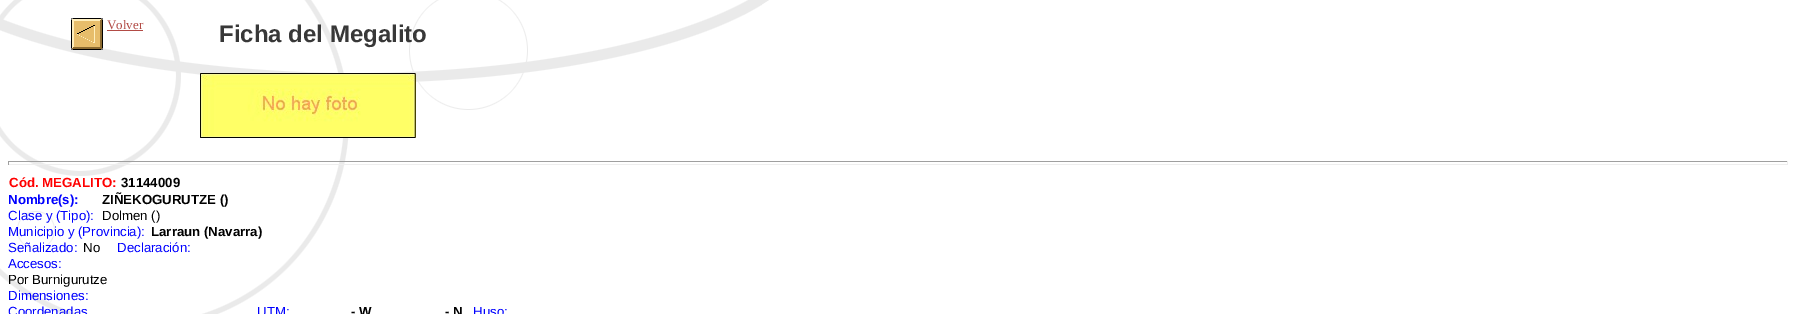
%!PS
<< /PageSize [1796 314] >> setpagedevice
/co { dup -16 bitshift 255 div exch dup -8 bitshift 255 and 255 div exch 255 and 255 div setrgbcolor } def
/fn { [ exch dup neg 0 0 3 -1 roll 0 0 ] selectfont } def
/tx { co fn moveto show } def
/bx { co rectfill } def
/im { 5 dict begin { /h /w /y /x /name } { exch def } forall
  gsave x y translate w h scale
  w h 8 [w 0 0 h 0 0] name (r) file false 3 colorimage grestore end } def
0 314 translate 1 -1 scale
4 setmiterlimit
0 0 1796 314 16#FFFFFF bx
(media/1.raw) 0 0 769 314 im
(media/2.raw) 71 18 32 32 im
107 30 36 1 16#B24B45 bx
(media/3.raw) 200 73 216 65 im
8 161 1780 1 16#9F9F9F bx
1787 161 1 4 16#EEEEEE bx
8 164 1780 1 16#EEEEEE bx
8 161 1 4 16#9F9F9F bx
(Volver) 107 29 /LiberationSerif-Regular 13 16#B24B45 tx
(Ficha del Megalito) 219 42 /LiberationSans-Bold 24 16#383838 tx
(Cód. MEGALITO:) 9 187 /LiberationSans-Bold 13.25 16#FF0000 tx
(31144009) 121 187 /LiberationSans-Bold 13.25 16#000000 tx
(Nombre\(s\):) 8 204 /LiberationSans-Bold 13.25 16#0000FF tx
(ZIÑEKOGURUTZE \(\)) 102 204 /LiberationSans-Bold 13.25 16#000000 tx
(Clase y \(Tipo\):) 8 220 /LiberationSans-Regular 13.25 16#0000FF tx
(Dolmen \(\)) 102 220 /LiberationSans-Regular 13.25 16#000000 tx
(Municipio y \(Provincia\):) 8 236 /LiberationSans-Regular 13.25 16#0000FF tx
(Larraun \(Navarra\)) 151 236 /LiberationSans-Bold 13.25 16#000000 tx
(Señalizado:) 8 252 /LiberationSans-Regular 13.25 16#0000FF tx
(No) 83 252 /LiberationSans-Regular 13.25 16#000000 tx
(Declaración:) 117 252 /LiberationSans-Regular 13.25 16#0000FF tx
(Accesos:) 8 268 /LiberationSans-Regular 13.25 16#0000FF tx
(Por Burnigurutze) 8 284 /LiberationSans-Regular 13.25 16#000000 tx
(Dimensiones:) 8 300 /LiberationSans-Regular 13.25 16#0000FF tx
(Coordenadas) 8 316 /LiberationSans-Regular 13.25 16#0000FF tx
(UTM:) 257 316 /LiberationSans-Regular 13.25 16#0000FF tx
(- W) 351 316 /LiberationSans-Bold 13.25 16#000000 tx
(- N) 445 316 /LiberationSans-Bold 13.25 16#000000 tx
(Huso:) 473 316 /LiberationSans-Regular 13.25 16#0000FF tx
showpage
